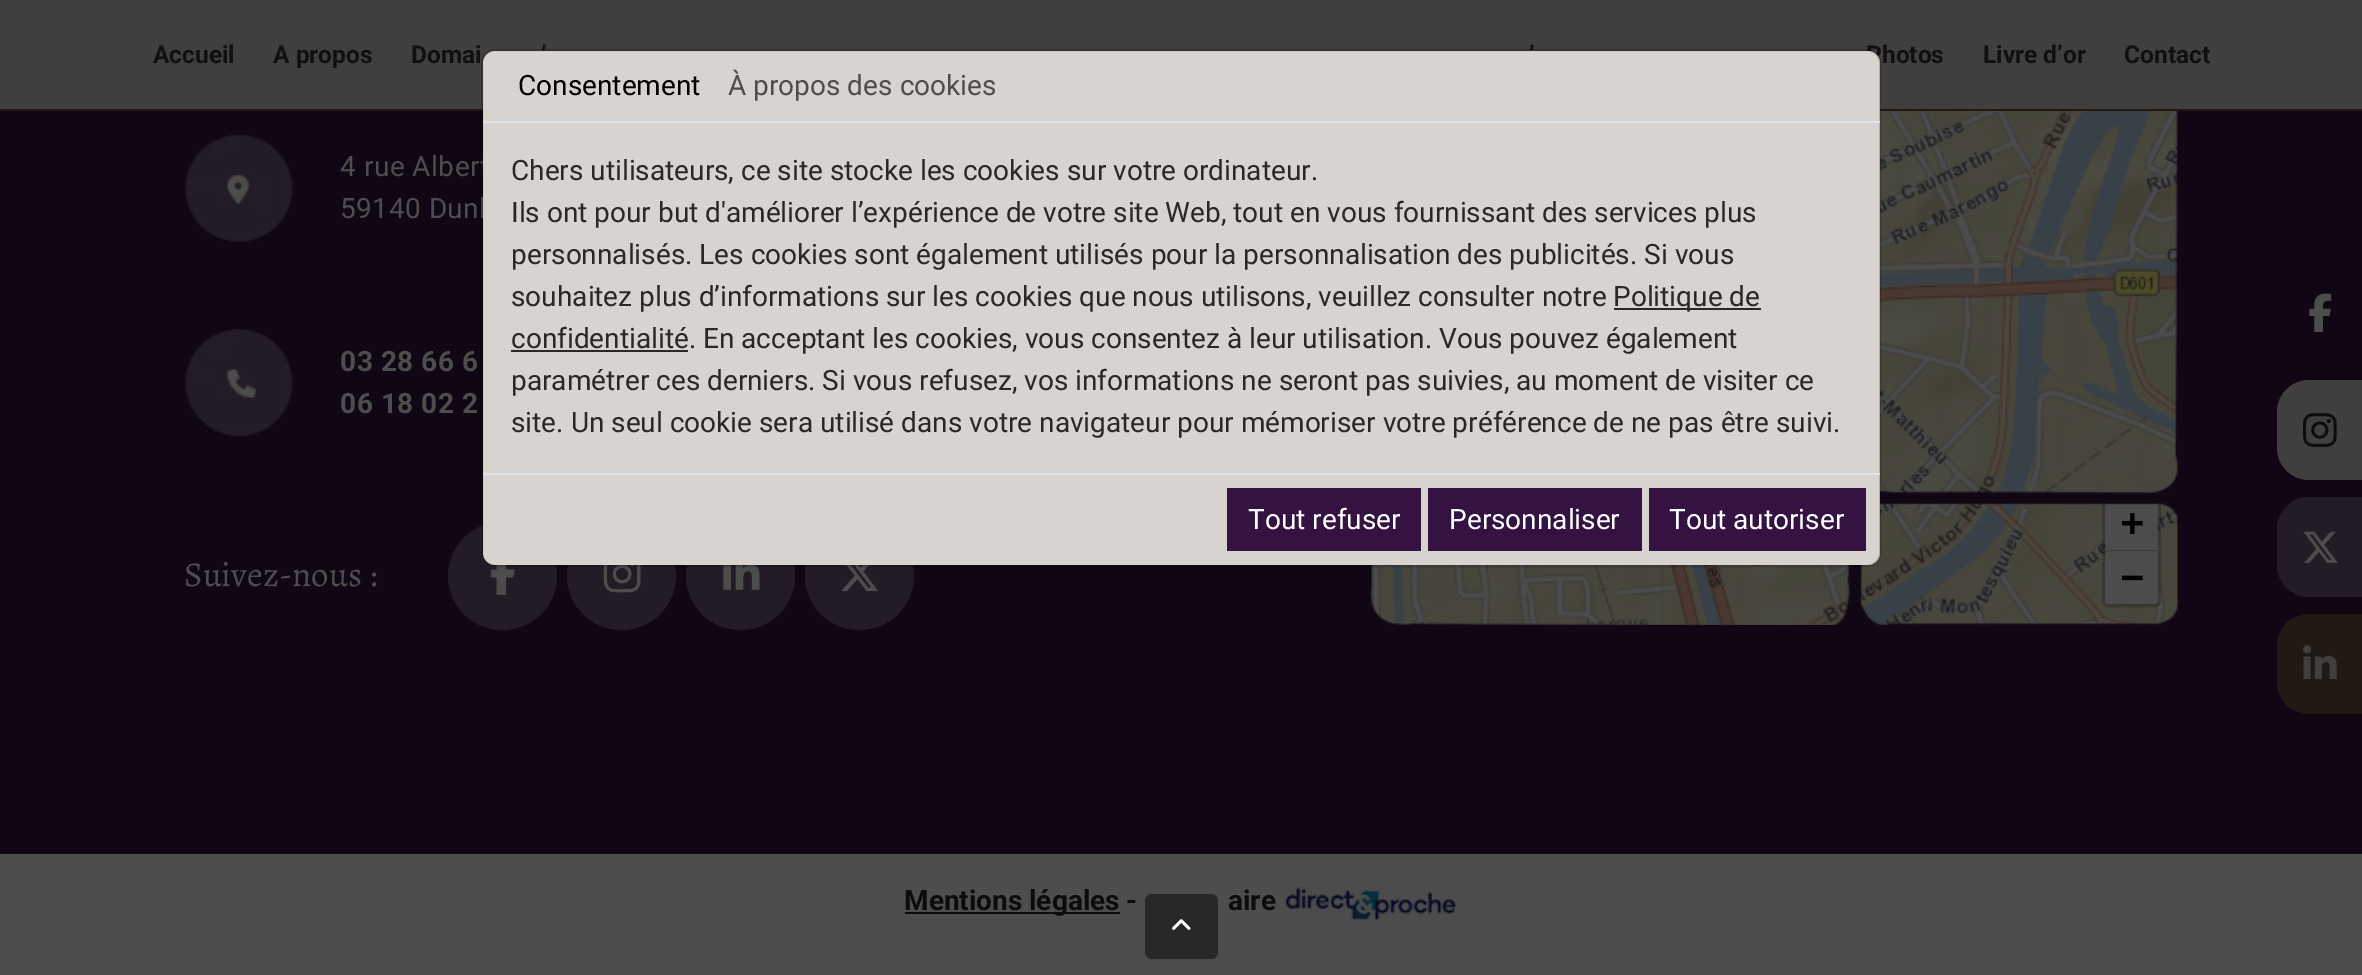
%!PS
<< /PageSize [2362 975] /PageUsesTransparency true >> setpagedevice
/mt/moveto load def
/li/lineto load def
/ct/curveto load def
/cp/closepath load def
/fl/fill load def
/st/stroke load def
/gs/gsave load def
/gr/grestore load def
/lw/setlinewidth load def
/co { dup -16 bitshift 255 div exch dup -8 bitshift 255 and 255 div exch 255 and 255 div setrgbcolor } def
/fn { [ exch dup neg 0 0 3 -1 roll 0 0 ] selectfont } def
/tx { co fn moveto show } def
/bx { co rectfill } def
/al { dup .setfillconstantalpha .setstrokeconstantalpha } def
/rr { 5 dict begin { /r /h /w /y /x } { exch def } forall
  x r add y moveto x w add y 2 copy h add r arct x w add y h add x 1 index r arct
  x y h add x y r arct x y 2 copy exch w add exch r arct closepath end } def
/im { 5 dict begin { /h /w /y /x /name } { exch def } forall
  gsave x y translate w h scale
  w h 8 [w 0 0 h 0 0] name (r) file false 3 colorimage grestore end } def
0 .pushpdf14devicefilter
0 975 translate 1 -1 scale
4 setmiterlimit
0 0 2362 975 16#100614 bx
0 0 2362 109 16#413F3E bx
0 109 2362 2 16#211914 bx
(media/1.raw) 185 134 108 109 im
(media/2.raw) 185 328 108 109 im
16#231C27 co
449 523 107 106 53 rr gs fl gr
2 lw
st
(media/3.raw) 491 565 24 30 im
568 523 107 106 53 rr gs fl gr
st
(media/4.raw) 603 565 38 28 im
687 523 107 106 53 rr gs fl gr
st
(media/5.raw) 723 565 37 25 im
806 523 107 106 53 rr gs fl gr
st
(media/6.raw) 841 565 37 27 im
(media/7.raw) 1370 111 809 514 im
(media/8.raw) 1370 111 809 514 im
0 854 2362 121 16#4D4D4D bx
905 912 215 2 16#0C0C0C bx
16#282828 co
1145 894 73 65 7 rr fl
(media/9.raw) 1172 919 19 11 im
(media/10.raw) 1284 887 173 34 im
(media/11.raw) 2309 293 23 40 im
16#413F3E co
2309 380 mt 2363 380 li 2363 480 li 2309 480 li 2291.5 480 2277 465.5 2277 448 ct 2277 412 li 2277 394.5 2291.5 380 2309 380 ct cp fl
(media/12.raw) 2303 413 34 34 im
16#231C27 co
2309 497 mt 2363 497 li 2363 597 li 2309 597 li 2291.5 597 2277 582.5 2277 565 ct 2277 529 li 2277 511.5 2291.5 497 2309 497 ct cp fl
(media/13.raw) 2303 531 35 32 im
16#211914 co
2309 614 mt 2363 614 li 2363 714 li 2309 714 li 2291.5 714 2277 699.5 2277 682 ct 2277 646 li 2277 628.5 2291.5 614 2309 614 ct cp fl
(media/14.raw) 2303 645 34 34 im
(Accueil) 153 63 /Roboto-Bold 24.5 16#110F12 tx
(A propos) 273 63 /Roboto-Bold 24.5 16#110F12 tx
(Domai) 411 63 /Roboto-Bold 24.5 16#110F12 tx
(’) 541 63 /Roboto-Bold 24.5 16#110F12 tx
(’) 1529 63 /Roboto-Bold 24.5 16#110F12 tx
(Photos) 1866 63 /Roboto-Bold 24.5 16#110F12 tx
(Livre d’or) 1983 63 /Roboto-Bold 24.5 16#110F12 tx
(Contact) 2124 63 /Roboto-Bold 24.5 16#110F12 tx
/Roboto-Regular 28 fn
16#4D4D4D co
340 176 mt .5 0 (4 rue Albert) ashow
340 218 mt .5 0 (59140 Dunk) ashow
/Roboto-Bold 28 fn
340 371 mt .5 0 (03 28 66 6) ashow
340 413 mt .5 0 (06 18 02 2) ashow
(Suivez-nous :) 184 586 /Alegreya-Regular 35 16#4D4D4D tx
(Mentions légales -) 904 910 /Roboto-Bold 28 16#0C0C0C tx
(aire) 1228 910 /Roboto-Bold 28 16#0C0C0C tx
16#D8D3CF co
483 51 1397 514 12 rr fl
0.18 al
16#000000 co
482 50 1398 516 13 rr st
1 al
483 121 1397 2 16#DEE2E6 bx
(Consentement) 518 95 /Roboto-Regular 28 16#000000 tx
(À propos des cookies) 728 95 /Roboto-Regular 28 16#4D4D4D tx
(Chers utilisateurs, ce site stocke les cookies sur votre ordinateur.) 511 180 /Roboto-Regular 28 16#282828 tx
(Ils ont pour but d'améliorer l’expérience de votre site Web, tout en vous fournissant des services plus) 511 222 /Roboto-Regular 28 16#282828 tx
(personnalisés. Les cookies sont également utilisés pour la personnalisation des publicités. Si vous) 511 264 /Roboto-Regular 28 16#282828 tx
(souhaitez plus d’informations sur les cookies que nous utilisons, veuillez consulter notre) 511 306 /Roboto-Regular 28 16#282828 tx
1614 308 147 2 16#282828 bx
(Politique de) 1613 306 /Roboto-Regular 28 16#282828 tx
511 350 177 2 16#282828 bx
(confidentialité. En acceptant les cookies, vous consentez à leur utilisation. Vous pouvez également) 511 348 /Roboto-Regular 28 16#282828 tx
(paramétrer ces derniers. Si vous refusez, vos informations ne seront pas suivies, au moment de visiter ce) 511 390 /Roboto-Regular 28 16#282828 tx
(site. Un seul cookie sera utilisé dans votre navigateur pour mémoriser votre préférence de ne pas être suivi.) 511 432 /Roboto-Regular 28 16#282828 tx
483 473 1397 2 16#DEE2E6 bx
1227 488 194 63 16#341343 bx
(Tout refuser) 1248 529 /Roboto-Regular 28 16#FFFFFF tx
1428 488 214 63 16#341343 bx
(Personnaliser) 1449 529 /Roboto-Regular 28 16#FFFFFF tx
1649 488 217 63 16#341343 bx
(Tout autoriser) 1669 529 /Roboto-Regular 28 16#FFFFFF tx
.poppdf14devicefilter showpage
